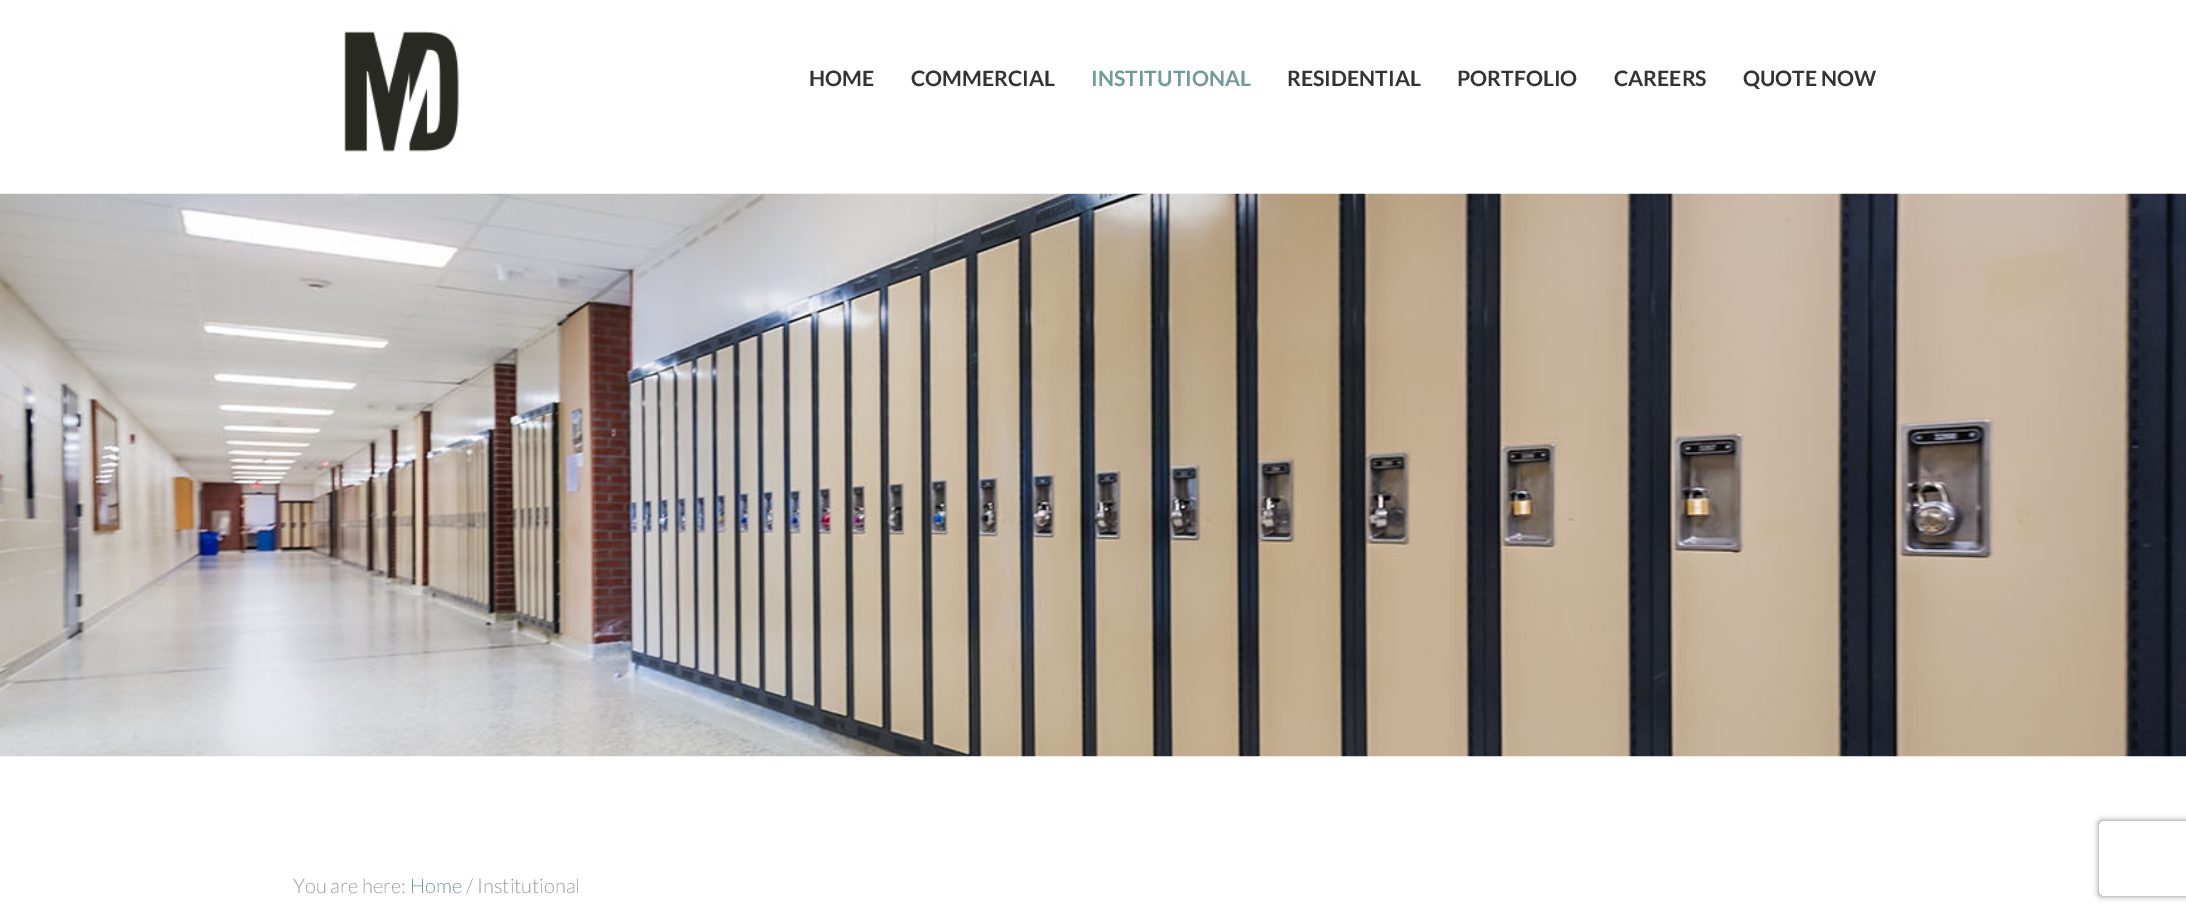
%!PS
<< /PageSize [2186 913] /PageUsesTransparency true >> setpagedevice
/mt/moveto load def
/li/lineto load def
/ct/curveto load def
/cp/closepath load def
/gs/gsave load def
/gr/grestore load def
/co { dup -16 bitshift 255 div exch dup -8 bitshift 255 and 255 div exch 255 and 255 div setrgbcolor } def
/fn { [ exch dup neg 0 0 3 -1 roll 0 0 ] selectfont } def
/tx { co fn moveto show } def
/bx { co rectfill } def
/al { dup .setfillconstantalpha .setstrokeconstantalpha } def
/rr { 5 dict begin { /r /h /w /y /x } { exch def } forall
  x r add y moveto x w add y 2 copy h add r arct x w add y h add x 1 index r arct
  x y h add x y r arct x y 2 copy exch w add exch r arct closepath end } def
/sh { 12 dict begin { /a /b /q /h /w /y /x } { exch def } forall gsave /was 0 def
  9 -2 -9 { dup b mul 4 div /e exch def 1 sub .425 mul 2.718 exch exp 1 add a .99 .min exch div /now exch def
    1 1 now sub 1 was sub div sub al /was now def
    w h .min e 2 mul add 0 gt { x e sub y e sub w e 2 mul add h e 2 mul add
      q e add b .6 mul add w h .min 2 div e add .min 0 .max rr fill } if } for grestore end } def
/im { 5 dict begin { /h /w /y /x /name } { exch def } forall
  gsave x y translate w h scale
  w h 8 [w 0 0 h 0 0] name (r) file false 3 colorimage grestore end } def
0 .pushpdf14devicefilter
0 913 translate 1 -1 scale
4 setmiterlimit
0 0 2186 913 16#FFFFFF bx
(media/1.raw) 344 31 115 121 im
(media/2.raw) 0 193 2186 564 im
gs
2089 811 mt 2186 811 li 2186 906 li 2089 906 li cp 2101.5 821 mt 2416.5 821 li 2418 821 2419 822 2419 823.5 ct 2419 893.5 li 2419 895 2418 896 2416.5 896 ct 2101.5 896 li 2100 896 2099 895 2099 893.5 ct 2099 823.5 li 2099 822 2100 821 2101.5 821 ct cp eoclip newpath
16#808080 co
2099 821 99 75 2.5 3 1 sh
gr
(HOME) 809 86 /Lato-Bold 21.25 16#333333 tx
(COMMERCIAL) 911 86 /Lato-Bold 21.25 16#333333 tx
(INSTITUTIONAL) 1091 86 /Lato-Bold 21.25 16#6D9C96 tx
(RESIDENTIAL) 1287 86 /Lato-Bold 21.25 16#333333 tx
(PORTFOLIO) 1457 86 /Lato-Bold 21.25 16#333333 tx
(CAREERS) 1614 86 /Lato-Bold 21.25 16#333333 tx
(QUOTE NOW) 1743 86 /Lato-Bold 21.25 16#333333 tx
(You are here:) 293 893 /Lato-Light 20 16#999999 tx
(Home) 410 893 /Lato-Light 20 16#6D9C96 tx
(/ Institutional) 466 893 /Lato-Light 20 16#999999 tx
.poppdf14devicefilter showpage
